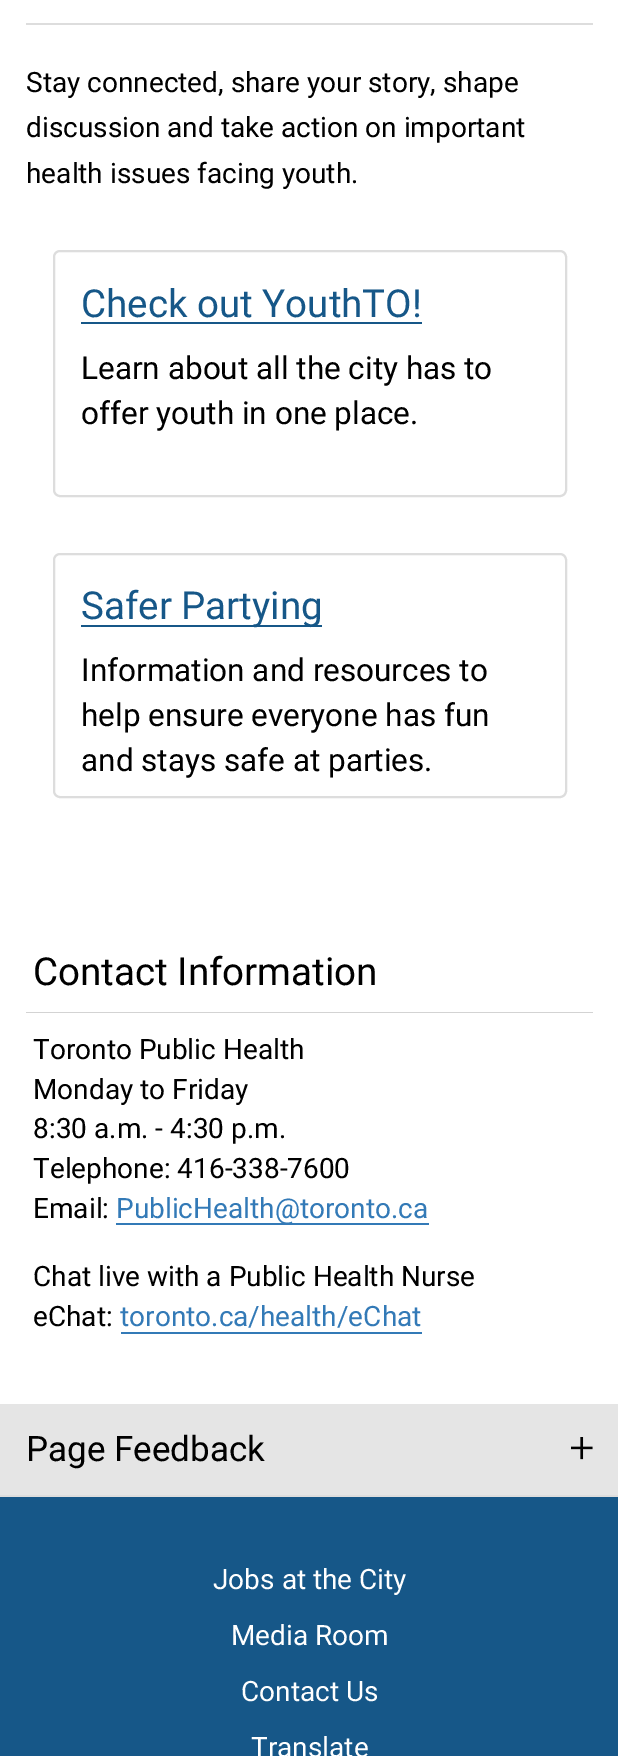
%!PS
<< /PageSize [618 1756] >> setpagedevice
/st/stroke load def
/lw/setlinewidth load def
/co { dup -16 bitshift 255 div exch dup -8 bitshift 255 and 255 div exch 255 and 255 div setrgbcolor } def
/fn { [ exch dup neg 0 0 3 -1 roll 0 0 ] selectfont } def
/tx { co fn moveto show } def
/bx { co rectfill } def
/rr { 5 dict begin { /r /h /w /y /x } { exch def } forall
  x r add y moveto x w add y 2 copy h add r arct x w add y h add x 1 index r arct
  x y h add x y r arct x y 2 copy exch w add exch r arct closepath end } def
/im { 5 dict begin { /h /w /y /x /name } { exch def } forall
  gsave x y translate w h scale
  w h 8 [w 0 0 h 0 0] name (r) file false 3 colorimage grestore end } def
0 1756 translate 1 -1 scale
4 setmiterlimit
0 0 618 1756 16#FFFFFF bx
26 23 567 2 16#DDDDDD bx
2 lw
54 251 512 245 6 rr st
81 322 341 2 16#165788 bx
16#DDDDDD co
54 554 512 243 6 rr st
81 625 241 2 16#165788 bx
26 1012 567 1 16#D3D3D3 bx
116 1223 313 2 16#337AB7 bx
121 1332 301 2 16#337AB7 bx
0 1497 618 259 16#165788 bx
0 1404 618 91 16#E5E5E5 bx
0 1495 618 2 16#DDDDDD bx
(media/1.raw) 571 1437 22 23 im
(Stay connected, share your story, shape) 26 92 /Roboto-Regular 28 16#000000 tx
(discussion and take action on important) 26 137 /Roboto-Regular 28 16#000000 tx
(health issues facing youth.) 26 183 /Roboto-Regular 28 16#000000 tx
(Check out YouthTO!) 81 317 /Roboto-Regular 38.5 16#165788 tx
(Learn about all the city has to) 81 379 /Roboto-Regular 31.5 16#000000 tx
(offer youth in one place.) 81 424 /Roboto-Regular 31.5 16#000000 tx
(Safer Partying) 81 619 /Roboto-Regular 38.5 16#165788 tx
(Information and resources to) 81 681 /Roboto-Regular 31.5 16#000000 tx
(help ensure everyone has fun) 81 726 /Roboto-Regular 31.5 16#000000 tx
(and stays safe at parties.) 81 771 /Roboto-Regular 31.5 16#000000 tx
(Contact Information) 33 985 /Roboto-Regular 38.5 16#000000 tx
(Toronto Public Health) 33 1059 /Roboto-Regular 28 16#000000 tx
(Monday to Friday) 33 1099 /Roboto-Regular 28 16#000000 tx
(8:30 a.m. - 4:30 p.m.) 33 1138 /Roboto-Regular 28 16#000000 tx
(Telephone: 416-338-7600) 33 1178 /Roboto-Regular 28 16#000000 tx
(Email:) 33 1218 /Roboto-Regular 28 16#000000 tx
(PublicHealth@toronto.ca) 116 1218 /Roboto-Regular 28 16#337AB7 tx
(Chat live with a Public Health Nurse) 33 1286 /Roboto-Regular 28 16#000000 tx
(eChat:) 33 1326 /Roboto-Regular 28 16#000000 tx
(toronto.ca/health/eChat) 120 1326 /Roboto-Regular 28 16#337AB7 tx
(Page Feedback) 26 1461 /Roboto-Regular 35 16#000000 tx
(Jobs at the City) 213 1589 /Roboto-Regular 28 16#FFFFFF tx
(Media Room) 231 1645 /Roboto-Regular 28 16#FFFFFF tx
(Contact Us) 241 1701 /Roboto-Regular 28 16#FFFFFF tx
(Translate) 251 1757 /Roboto-Regular 28 16#FFFFFF tx
showpage
